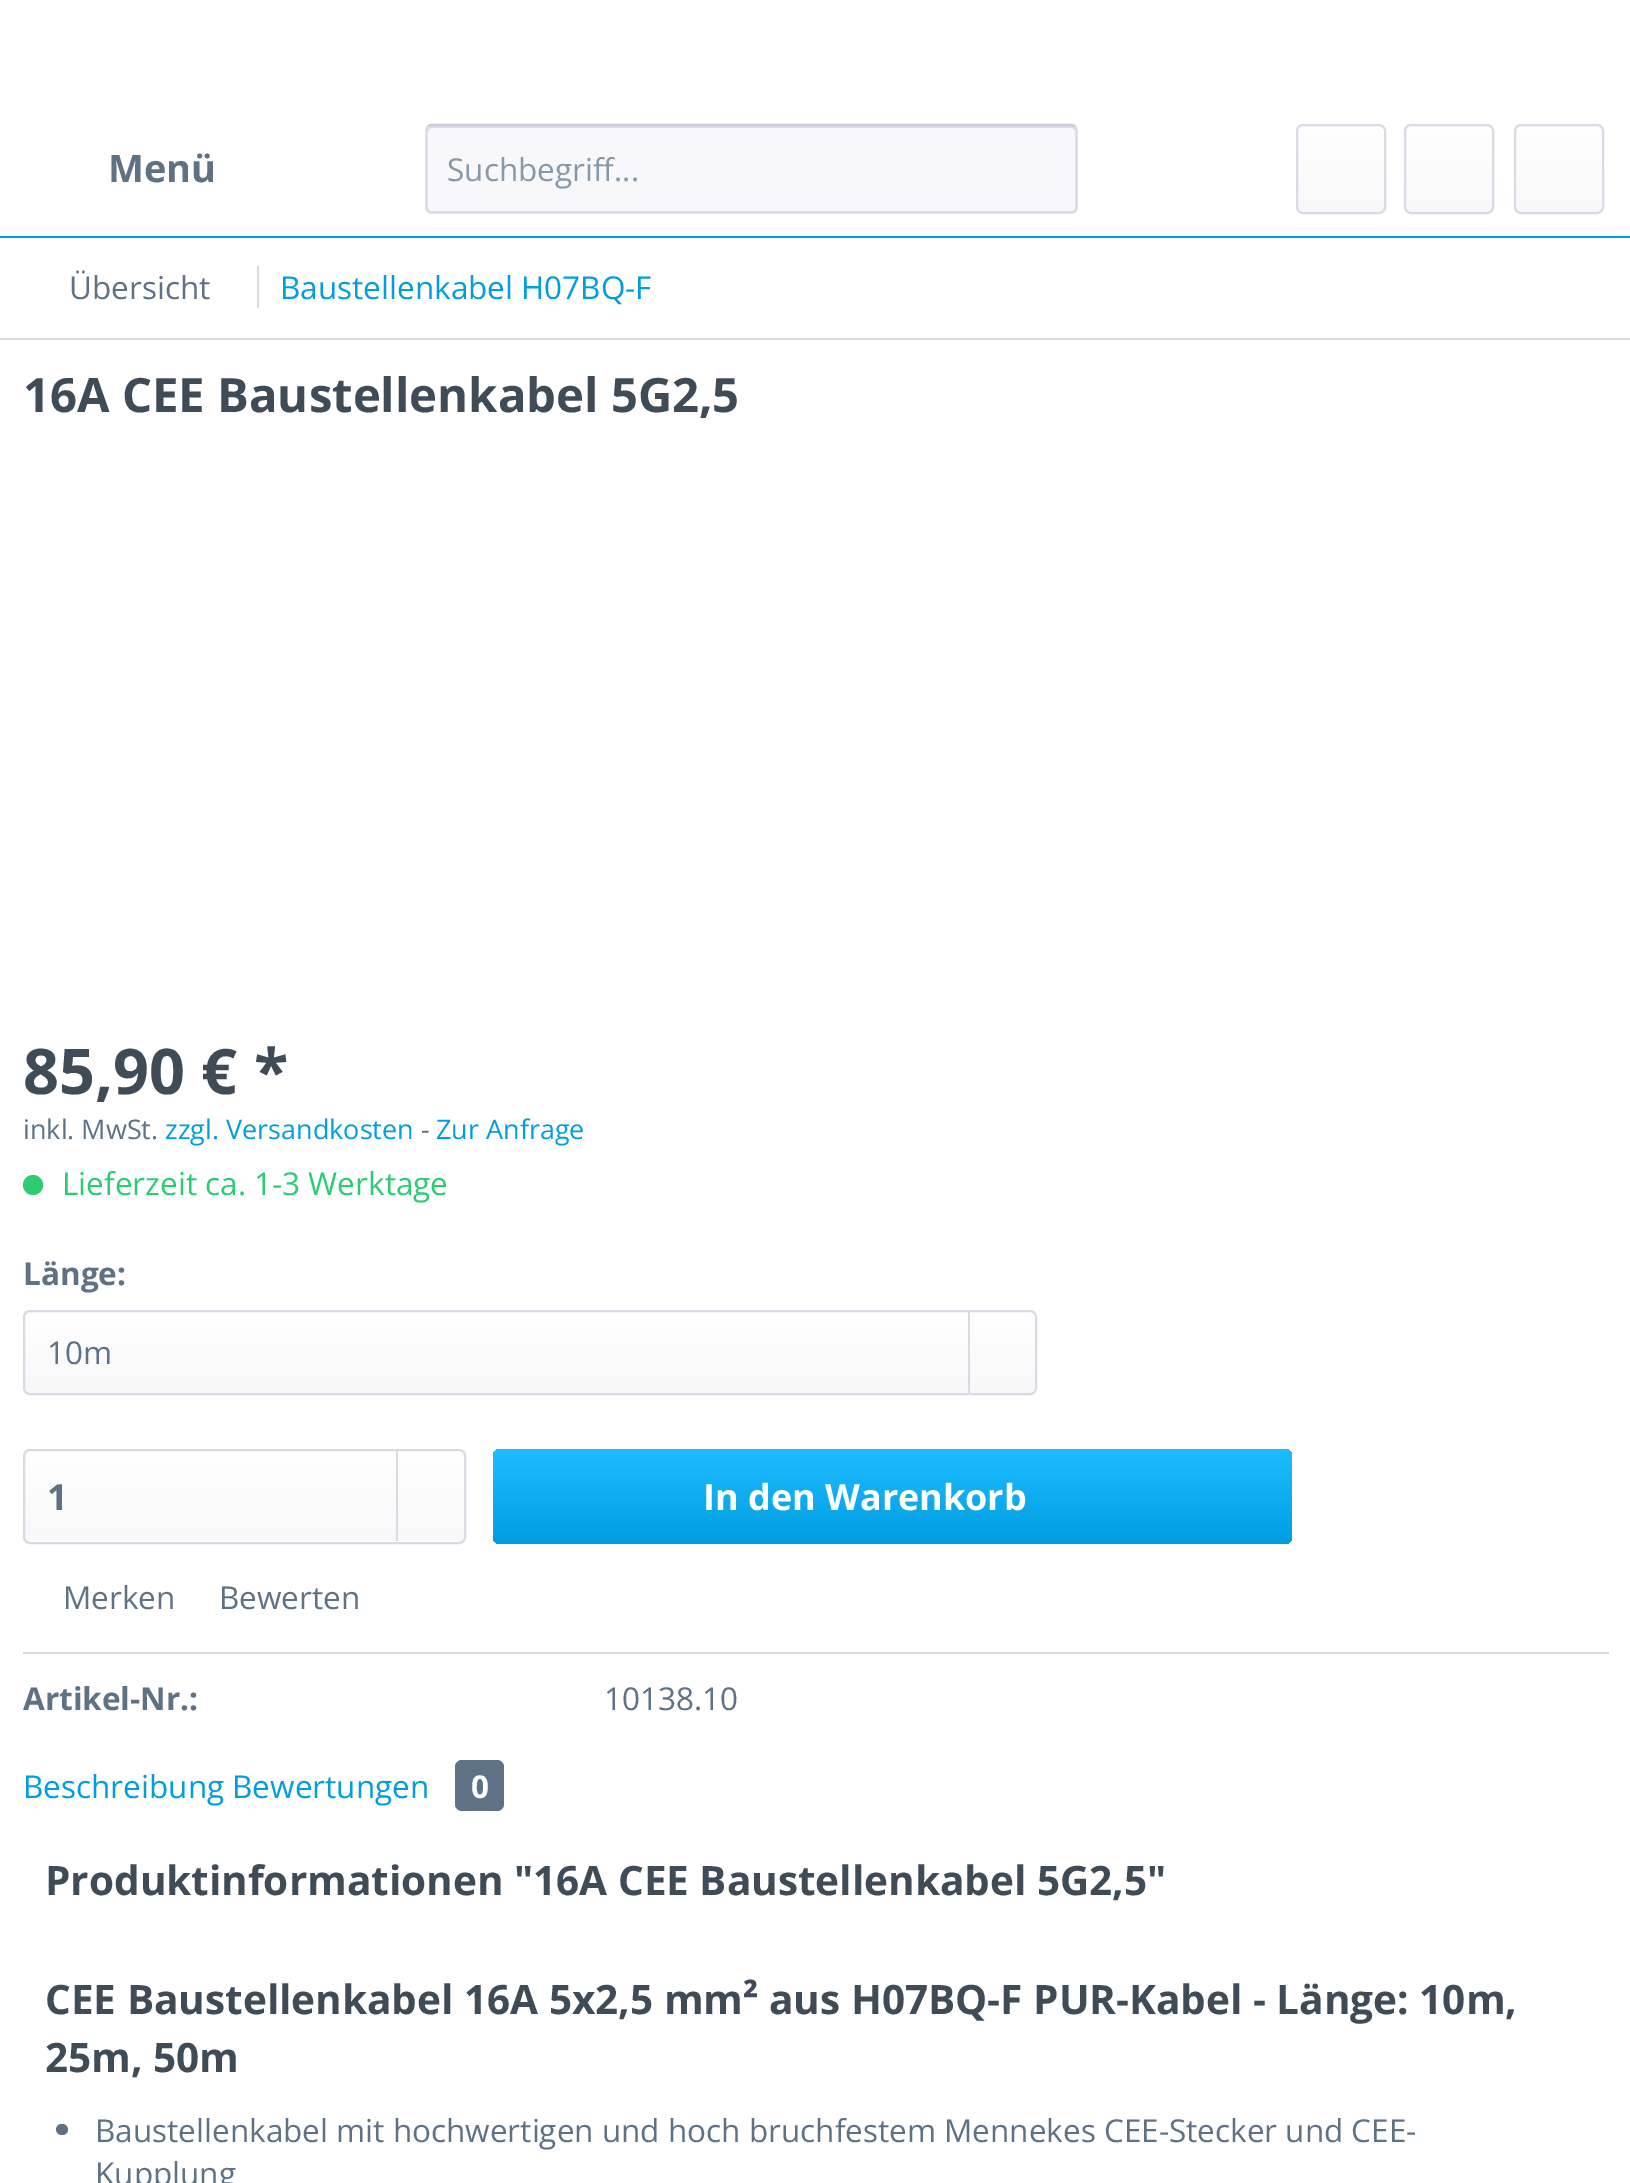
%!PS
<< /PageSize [1630 2183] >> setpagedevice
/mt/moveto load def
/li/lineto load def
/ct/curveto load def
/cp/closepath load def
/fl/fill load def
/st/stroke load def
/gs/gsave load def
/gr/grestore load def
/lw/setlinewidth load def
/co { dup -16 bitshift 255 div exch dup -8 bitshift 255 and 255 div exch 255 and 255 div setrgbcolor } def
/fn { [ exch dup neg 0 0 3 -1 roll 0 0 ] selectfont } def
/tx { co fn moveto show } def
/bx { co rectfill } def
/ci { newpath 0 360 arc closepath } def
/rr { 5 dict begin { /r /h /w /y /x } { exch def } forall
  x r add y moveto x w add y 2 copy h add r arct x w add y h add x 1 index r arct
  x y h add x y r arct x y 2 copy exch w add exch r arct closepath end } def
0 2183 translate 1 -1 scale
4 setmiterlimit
0 0 1630 2183 16#FFFFFF bx
0 236 1630 2 16#009EE0 bx
16#F8F8FA co
425 124 653 90 7 rr fl
16#DADAE5 co
432 128 mt 1071 128 li 1073 128 1076 130 1076 133 ct 1076 131 li 1076 128 1074 126 1071 126 ct 433 126 li 430 126 428 128 428 131 ct 428 133 li 428 130 430 128 432 128 ct cp fl
16#CBCBDB co
2.2 lw
428 126.5 mt 429 125.5 430.5 125 432 125 ct 1071 125 li 1072.5 125 1074 125.5 1075 126.5 ct st
16#DADAE5 co
1075 126.5 mt 1076 127.5 1076.5 129 1076.5 130.5 ct 1076.5 207 li 1076.5 208.5 1076 210 1075 211 ct 1074 212 1072.5 212.5 1071 212.5 ct 432 212.5 li 430.5 212.5 429 212 428 211 ct 427 210 426.5 208.5 426.5 207 ct 426.5 130.5 li 426.5 129 427 127.5 428 126.5 ct st
gs 1298 126 86 86 5 rr clip newpath
<< /ShadingType 2 /ColorSpace /DeviceRGB /Coords [1341 126 1341 212] /Extend [true true] /Function << /FunctionType 2 /Domain [0 1] /C0 [1 1 1] /C1 [.973 .973 .98] /N 1 >> >> shfill gr
2 lw
1297 125 88 88 6 rr st
gs 1406 126 86 86 5 rr clip newpath
<< /ShadingType 2 /ColorSpace /DeviceRGB /Coords [1449 126 1449 212] /Extend [true true] /Function << /FunctionType 2 /Domain [0 1] /C0 [1 1 1] /C1 [.973 .973 .98] /N 1 >> >> shfill gr
1405 125 88 88 6 rr st
gs 1517 126 85 86 5 rr clip newpath
<< /ShadingType 2 /ColorSpace /DeviceRGB /Coords [1559 126 1559 212] /Extend [true true] /Function << /FunctionType 2 /Domain [0 1] /C0 [1 1 1] /C1 [.973 .973 .98] /N 1 >> >> shfill gr
1515 125 88 88 6 rr st
0 338 1630 2 16#DADAE5 bx
257 266 2 42 16#DADAE5 bx
16#2ECC71 co
33 1185 10 ci fl
gs 25 1312 1010 81 5 rr clip newpath
<< /ShadingType 2 /ColorSpace /DeviceRGB /Coords [530 1312 530 1393] /Extend [true true] /Function << /FunctionType 2 /Domain [0 1] /C0 [1 1 1] /C1 [.973 .973 .98] /N 1 >> >> shfill gr
16#DADAE5 co
24 1311 1012 83 6 rr st
968 1312 2 81 16#DADAE5 bx
gs 25 1451 439 90 5 rr clip newpath
<< /ShadingType 2 /ColorSpace /DeviceRGB /Coords [244 1451 244 1541] /Extend [true true] /Function << /FunctionType 2 /Domain [0 1] /C0 [1 1 1] /C1 [.973 .973 .98] /N 1 >> >> shfill gr
24 1450 441 93 6 rr st
396 1451 2 90 16#DADAE5 bx
gs 493 1449 799 95 7 rr clip newpath
<< /ShadingType 2 /ColorSpace /DeviceRGB /Coords [892 1449 892 1544] /Extend [true true] /Function << /FunctionType 2 /Domain [0 1] /C0 [.118 .741 1] /C1 [0 .62 .878] /N 1 >> >> shfill gr
23 1652 1586 2 16#DADAE5 bx
16#5F7285 co
455 1760 49 51 7 rr fl
56 2124 12 11 5.5 rr fl
(Menü) 108 182 /OpenSans-Bold 38 16#5F7285 tx
(Suchbegriff...) 447 181 /OpenSans-Regular 31.5 16#8798A9 tx
(Übersicht) 69 299 /OpenSans-Regular 31.5 16#5F7285 tx
(Baustellenkabel H07BQ-F) 280 299 /OpenSans-Regular 31.5 16#009EE0 tx
(16A CEE Baustellenkabel 5G2,5) 23 412 /OpenSans-Bold 47.25 16#3F4C58 tx
(85,90 € *) 23 1094 /OpenSans-Bold 63 16#3F4C58 tx
(inkl. MwSt.) 23 1139 /OpenSans-Regular 27 16#5F7285 tx
(zzgl. Versandkosten) 165 1139 /OpenSans-Regular 27 16#009EE0 tx
(-) 421 1139 /OpenSans-Regular 27 16#5F7285 tx
(Zur Anfrage) 436 1139 /OpenSans-Regular 27 16#009EE0 tx
(Lieferzeit ca. 1-3 Werktage) 62 1195 /OpenSans-Regular 31.5 16#2ECC71 tx
(Länge:) 23 1285 /OpenSans-Bold 31.5 16#5F7285 tx
(10m) 47 1364 /OpenSans-Regular 31.5 16#5F7285 tx
(1) 47 1510 /OpenSans-Bold 36 16#5F7285 tx
(In den Warenkorb) 703 1510 /OpenSans-Bold 36 16#FFFFFF tx
(Merken) 63 1609 /OpenSans-Regular 31.5 16#5F7285 tx
(Bewerten) 219 1609 /OpenSans-Regular 31.5 16#5F7285 tx
(Artikel-Nr.:) 23 1710 /OpenSans-Bold 31.5 16#5F7285 tx
(10138.10) 604 1710 /OpenSans-Regular 31.5 16#5F7285 tx
(Beschreibung Bewertungen) 23 1798 /OpenSans-Regular 31.5 16#009EE0 tx
(0) 471 1798 /OpenSans-Bold 31.5 16#FFFFFF tx
(Produktinformationen "16A CEE Baustellenkabel 5G2,5") 45 1895 /OpenSans-Bold 40.5 16#3F4C58 tx
(CEE Baustellenkabel 16A 5x2,5 mm² aus H07BQ-F PUR-Kabel - Länge: 10m,) 45 2014 /OpenSans-Bold 40.5 16#3F4C58 tx
(25m, 50m) 45 2072 /OpenSans-Bold 40.5 16#3F4C58 tx
(Baustellenkabel mit hochwertigen und hoch bruchfestem Mennekes CEE-Stecker und CEE-) 95 2142 /OpenSans-Regular 31.5 16#5F7285 tx
(Kupplung) 95 2185 /OpenSans-Regular 31.5 16#5F7285 tx
showpage
